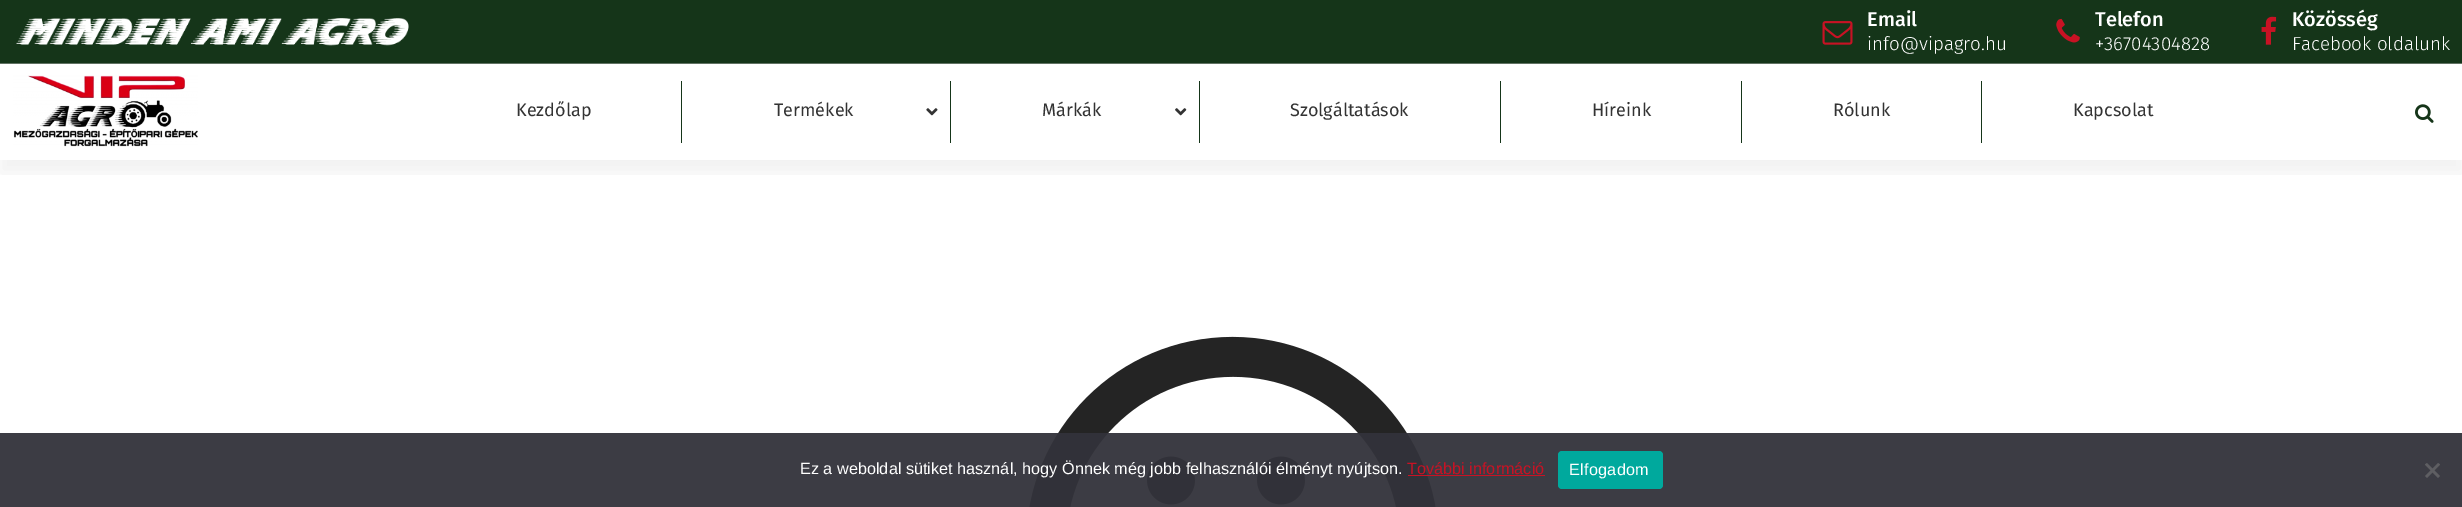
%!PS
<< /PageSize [2462 507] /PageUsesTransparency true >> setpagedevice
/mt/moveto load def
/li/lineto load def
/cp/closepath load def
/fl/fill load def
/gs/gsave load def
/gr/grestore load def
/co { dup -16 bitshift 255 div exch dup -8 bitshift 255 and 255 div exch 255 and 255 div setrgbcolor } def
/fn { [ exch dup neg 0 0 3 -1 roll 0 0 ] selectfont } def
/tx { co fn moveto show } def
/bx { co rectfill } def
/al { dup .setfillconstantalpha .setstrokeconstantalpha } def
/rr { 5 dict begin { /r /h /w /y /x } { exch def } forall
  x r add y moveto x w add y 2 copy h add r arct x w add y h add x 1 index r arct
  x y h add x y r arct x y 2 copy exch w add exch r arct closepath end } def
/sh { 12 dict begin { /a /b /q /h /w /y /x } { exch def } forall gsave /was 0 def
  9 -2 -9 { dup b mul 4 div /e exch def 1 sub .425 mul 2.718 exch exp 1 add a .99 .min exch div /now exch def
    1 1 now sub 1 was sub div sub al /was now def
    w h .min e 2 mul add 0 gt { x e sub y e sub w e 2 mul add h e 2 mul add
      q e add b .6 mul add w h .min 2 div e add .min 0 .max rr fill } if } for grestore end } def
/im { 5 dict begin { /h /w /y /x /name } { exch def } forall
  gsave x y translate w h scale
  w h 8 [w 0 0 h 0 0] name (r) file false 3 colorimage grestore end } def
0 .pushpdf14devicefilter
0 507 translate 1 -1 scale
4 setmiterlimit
0 0 2462 507 16#FFFFFF bx
0 0 2462 63 16#153519 bx
0 63 2462 1 16#617263 bx
(media/1.raw) 16 18 393 28 im
(media/2.raw) 1822 21 31 24 im
(media/3.raw) 2056 18 24 25 im
(media/4.raw) 2261 16 16 29 im
gs
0 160 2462 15 rectclip
16#000000 co
0 76 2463 97 0 9.5 .05 sh
gr
(media/5.raw) 13 75 185 72 im
681 81 1 62 16#153519 bx
(media/6.raw) 926 108 12 8 im
950 81 1 62 16#153519 bx
(media/7.raw) 1175 108 12 8 im
1199 81 1 62 16#153519 bx
1500 81 1 62 16#153519 bx
1741 81 1 62 16#153519 bx
1981 81 1 62 16#153519 bx
(media/8.raw) 2415 104 19 19 im
(media/9.raw) 1029 336 407 171 im
0.95 al
0 433 2462 74 16#32323A bx
1 al
1408 475 137 1 16#C81224 bx
16#00A99D co
1558 451 105 38 4 rr fl
16#5E5E62 co
2438 463 mt 2440 464.5 li 2427 478 li 2425 476 li cp fl
2425 464.5 mt 2427 463 li 2440 476 li 2438 478 li cp fl
(Email) 1867 26 /FiraSans-Medium 20 16#FFFFFF tx
(info@vipagro.hu) 1867 50 /FiraSans-Light 18.75 16#FFFFFF tx
(Telefon) 2095 26 /FiraSans-Medium 20 16#FFFFFF tx
(+36704304828) 2095 50 /FiraSans-Light 18.75 16#FFFFFF tx
(Közösség) 2292 26 /FiraSans-Medium 20 16#FFFFFF tx
(Facebook oldalunk) 2292 50 /FiraSans-Light 18.75 16#FFFFFF tx
(Kezdőlap) 516 116 /FiraSans-Regular 18 16#333333 tx
(Termékek) 774 116 /FiraSans-Regular 18 16#333333 tx
(Márkák) 1042 116 /FiraSans-Regular 18 16#333333 tx
(Szolgáltatások) 1290 116 /FiraSans-Regular 18 16#333333 tx
(Híreink) 1592 116 /FiraSans-Regular 18 16#333333 tx
(Rólunk) 1833 116 /FiraSans-Regular 18 16#333333 tx
(Kapcsolat) 2073 116 /FiraSans-Regular 18 16#333333 tx
(Ez a weboldal sütiket használ, hogy Önnek még jobb felhasználói élményt nyújtson.) 800 474 /LiberationSans-Regular 16.25 16#FFFFFF tx
(További információ) 1407 474 /LiberationSans-Regular 16.25 16#C81224 tx
16#FFFFFF co
1569 475 mt .25 0 (Elfogadom) ashow
.poppdf14devicefilter showpage
